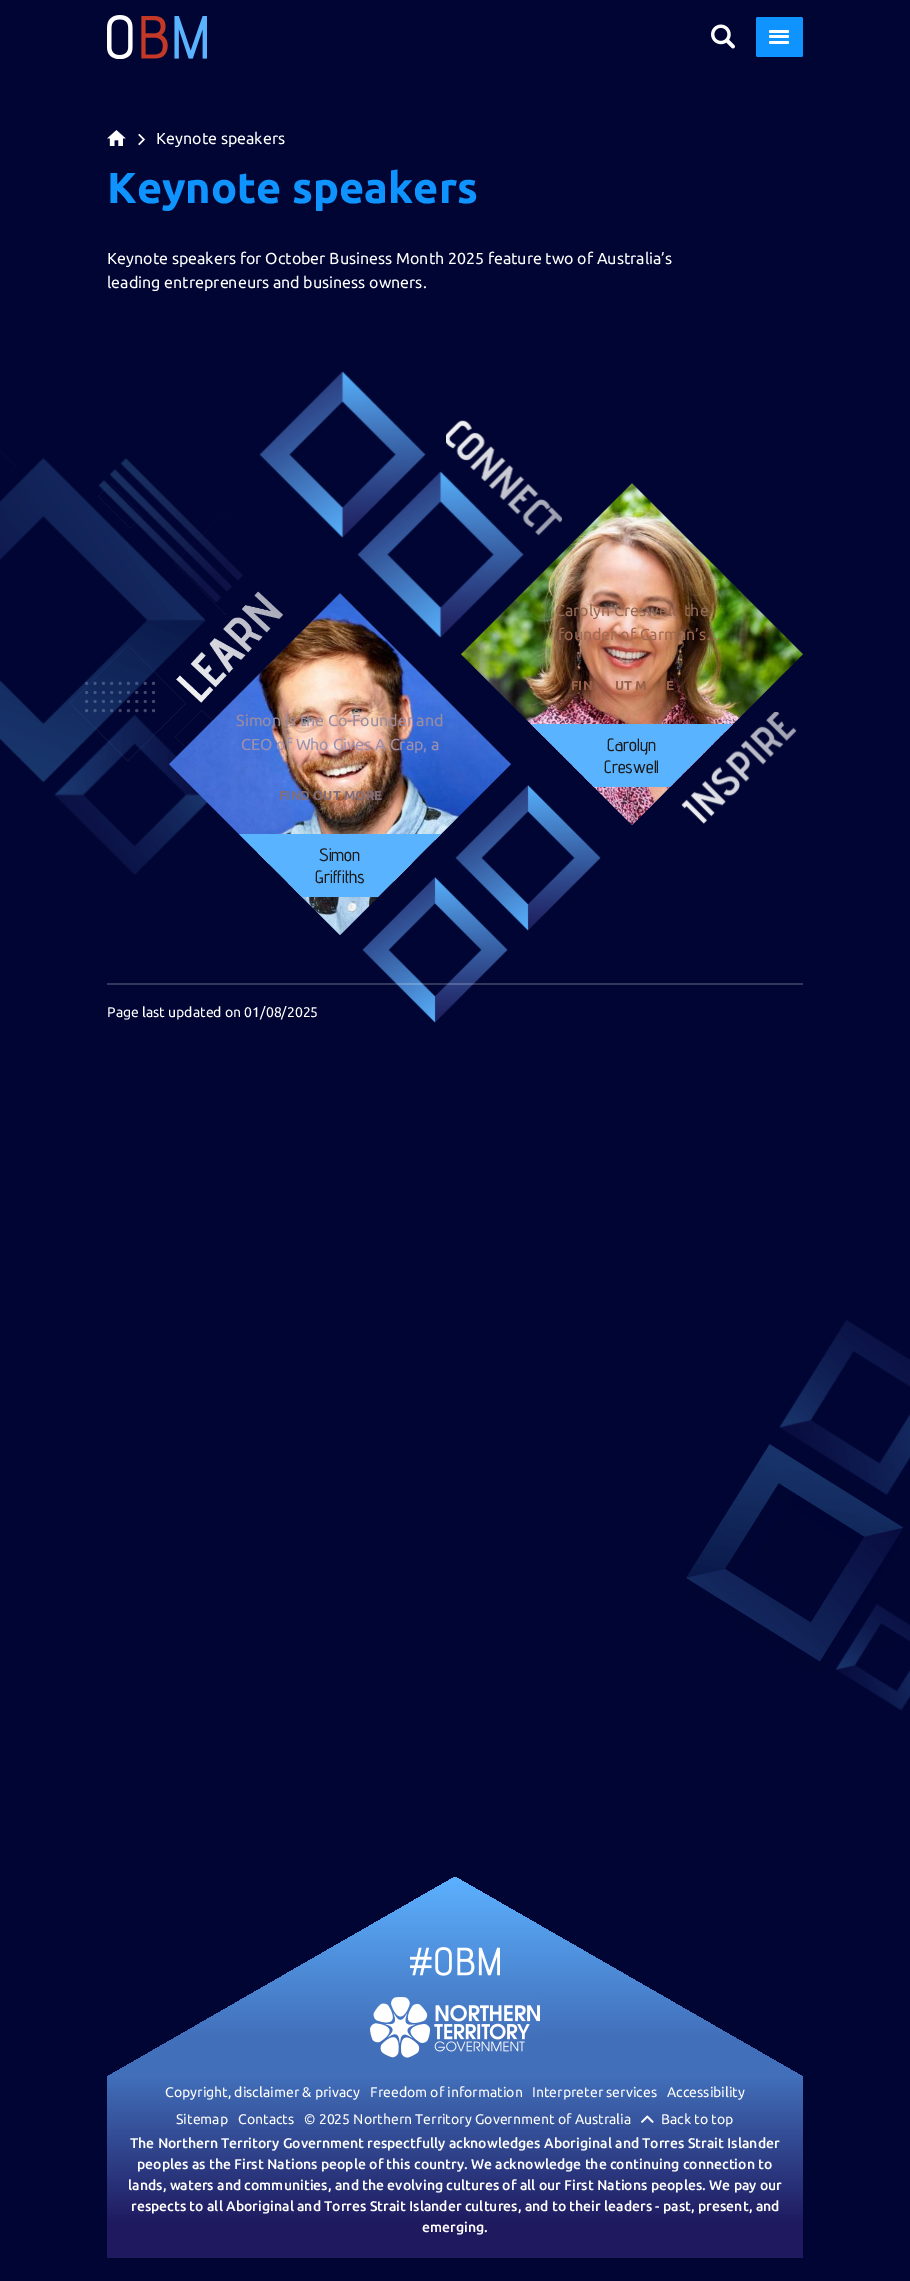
%!PS
<< /PageSize [910 2281] /PageUsesTransparency true >> setpagedevice
/mt/moveto load def
/li/lineto load def
/cp/closepath load def
/fl/fill load def
/gs/gsave load def
/gr/grestore load def
/co { dup -16 bitshift 255 div exch dup -8 bitshift 255 and 255 div exch 255 and 255 div setrgbcolor } def
/fn { [ exch dup neg 0 0 3 -1 roll 0 0 ] selectfont } def
/tx { co fn moveto show } def
/bx { co rectfill } def
/al { dup .setfillconstantalpha .setstrokeconstantalpha } def
/rr { 5 dict begin { /r /h /w /y /x } { exch def } forall
  x r add y moveto x w add y 2 copy h add r arct x w add y h add x 1 index r arct
  x y h add x y r arct x y 2 copy exch w add exch r arct closepath end } def
/im { 5 dict begin { /h /w /y /x /name } { exch def } forall
  gsave x y translate w h scale
  w h 8 [w 0 0 h 0 0] name (r) file false 3 colorimage grestore end } def
0 .pushpdf14devicefilter
0 2281 translate 1 -1 scale
4 setmiterlimit
0 0 910 2281 16#000533 bx
(media/1.raw) 107 15 100 44 im
(media/2.raw) 711 24 24 25 im
16#0F93FF co
756 17 47 40 2 rr fl
16#FFFFFF co
769 30 20 3 1.5 rr fl
769 35 20 3 1.5 rr fl
769 41 20 3 1.5 rr fl
(media/3.raw) 107 130 19 16 im
(media/4.raw) 138 133 7 13 im
(media/5.raw) 0 450 243 425 im
(media/6.raw) 446 420 116 116 im
(media/7.raw) 259 371 167 167 im
(media/8.raw) 357 471 167 167 im
(media/13.raw) 455 785 146 146 im
16#1F1F5F co
632 483 mt 803 654 li 632 825 li 461 654 li cp fl
(media/9.raw) 461 483 342 342 im
16#59B3FF co
594 787 mt 531 724 li 733 724 li 670 787 li cp fl
(media/10.raw) 681 712 116 112 im
(media/11.raw) 176 591 107 112 im
(media/14.raw) 362 877 146 146 im
16#1F1F5F co
340 593 mt 511 764 li 340 935 li 169 764 li cp fl
(media/12.raw) 169 593 342 342 im
16#59B3FF co
302 897 mt 239 834 li 441 834 li 378 897 li cp fl
0.2 al
107 983 696 2 16#FFFFFF bx
1 al
(media/15.raw) 686 1320 224 391 im
gs 107 2076 mt 803 2076 li 803 2258 li 107 2258 li cp clip newpath
<< /ShadingType 2 /ColorSpace /DeviceRGB /Coords [455 2076 455 2258] /Extend [true true] /Function << /FunctionType 3 /Domain [0 1] /Functions [<< /FunctionType 2 /Domain [0 1] /C0 [.259 .435 .729] /C1 [.122 .102 .373] /N 1 >> << /FunctionType 2 /Domain [0 1] /C0 [.122 .102 .373] /C1 [.122 .102 .373] /N 1 >>] /Bounds [.81] /Encode [0 1 0 1] >> >> shfill gr
gs 455 1877 mt 107 2077 li 803 2077 li cp clip newpath
<< /ShadingType 2 /ColorSpace /DeviceRGB /Coords [455 1877 455 2077] /Extend [true true] /Function << /FunctionType 3 /Domain [0 1] /Functions [<< /FunctionType 2 /Domain [0 1] /C0 [.361 .694 1] /C1 [.259 .435 .729] /N 1 >> << /FunctionType 2 /Domain [0 1] /C0 [.259 .435 .729] /C1 [.259 .435 .729] /N 1 >> << /FunctionType 2 /Domain [0 1] /C0 [.259 .435 .729] /C1 [.259 .435 .729] /N 1 >>] /Bounds [.81 .99] /Encode [0 1 0 1 0 1] >> >> shfill gr
(media/16.raw) 410 1947 90 29 im
(media/17.raw) 370 1997 170 61 im
(media/18.raw) 641 2115 13 8 im
(Keynote speakers) 156 144 /Ubuntu-Regular 16 16#FFFFFF tx
(Keynote speakers) 107 203 /Ubuntu-Bold 43.25 16#0F93FF tx
(Keynote speakers for October Business Month 2025 feature two of Australia’s) 107 264 /Ubuntu-Regular 16 16#FFFFFF tx
(leading entrepreneurs and business owners.) 107 288 /Ubuntu-Regular 16 16#FFFFFF tx
(Carolyn Creswell, the) 555 616 /Ubuntu-Regular 16 16#956A55 tx
(founder of Carman’s…) 558 640 /Ubuntu-Regular 16 16#9F6A51 tx
(FIN) 571 690 /Ubuntu-Bold 13 16#98614B tx
(UT M) 615 690 /Ubuntu-Bold 13 16#98614B tx
(E) 666 690 /Ubuntu-Bold 13 16#98614B tx
(Carolyn) 607 751 /AdventPro-Medium 18 16#1A1A1A tx
(Creswell) 604 773 /AdventPro-Medium 18 16#1A1A1A tx
(Simon is the Co-Founder and) 236 726 /Ubuntu-Regular 16 16#9A8CA1 tx
(CEO of Who Gives A Crap, a) 241 750 /Ubuntu-Regular 16 16#9D90AE tx
(FIND OUT MORE) 279 800 /Ubuntu-Bold 13 16#826E78 tx
(Simon) 319 861 /AdventPro-Medium 18 16#1A1A1A tx
(Griffiths) 315 883 /AdventPro-Medium 18 16#1A1A1A tx
(Page last updated on 01/08/2025) 107 1017 /Ubuntu-Regular 14 16#FFFFFF tx
(Copyright, disclaimer & privacy) 165 2097 /Ubuntu-Regular 14 16#FFFFFF tx
(Freedom of information) 370 2097 /Ubuntu-Regular 14 16#FFFFFF tx
(Interpreter services) 532 2097 /Ubuntu-Regular 14 16#FFFFFF tx
(Accessibility) 667 2097 /Ubuntu-Regular 14 16#FFFFFF tx
(Sitemap) 176 2124 /Ubuntu-Regular 14 16#FFFFFF tx
(Contacts) 238 2124 /Ubuntu-Regular 14 16#FFFFFF tx
(© 2025 Northern Territory Government of Australia) 304 2124 /Ubuntu-Regular 14 16#FFFFFF tx
(Back to top) 661 2124 /Ubuntu-Regular 14 16#FFFFFF tx
(The Northern Territory Government respectfully acknowledges Aboriginal and Torres Strait Islander) 130 2148 /Ubuntu-Medium 14 16#FFFFFF tx
(peoples as the First Nations people of this country. We acknowledge the continuing connection to) 137 2169 /Ubuntu-Medium 14 16#FFFFFF tx
(lands, waters and communities, and the evolving cultures of all our First Nations peoples. We pay our) 128 2190 /Ubuntu-Medium 14 16#FFFFFF tx
(respects to all Aboriginal and Torres Strait Islander cultures, and to their leaders - past, present, and) 131 2211 /Ubuntu-Medium 14 16#FFFFFF tx
(emerging.) 422 2232 /Ubuntu-Medium 14 16#FFFFFF tx
.poppdf14devicefilter showpage
